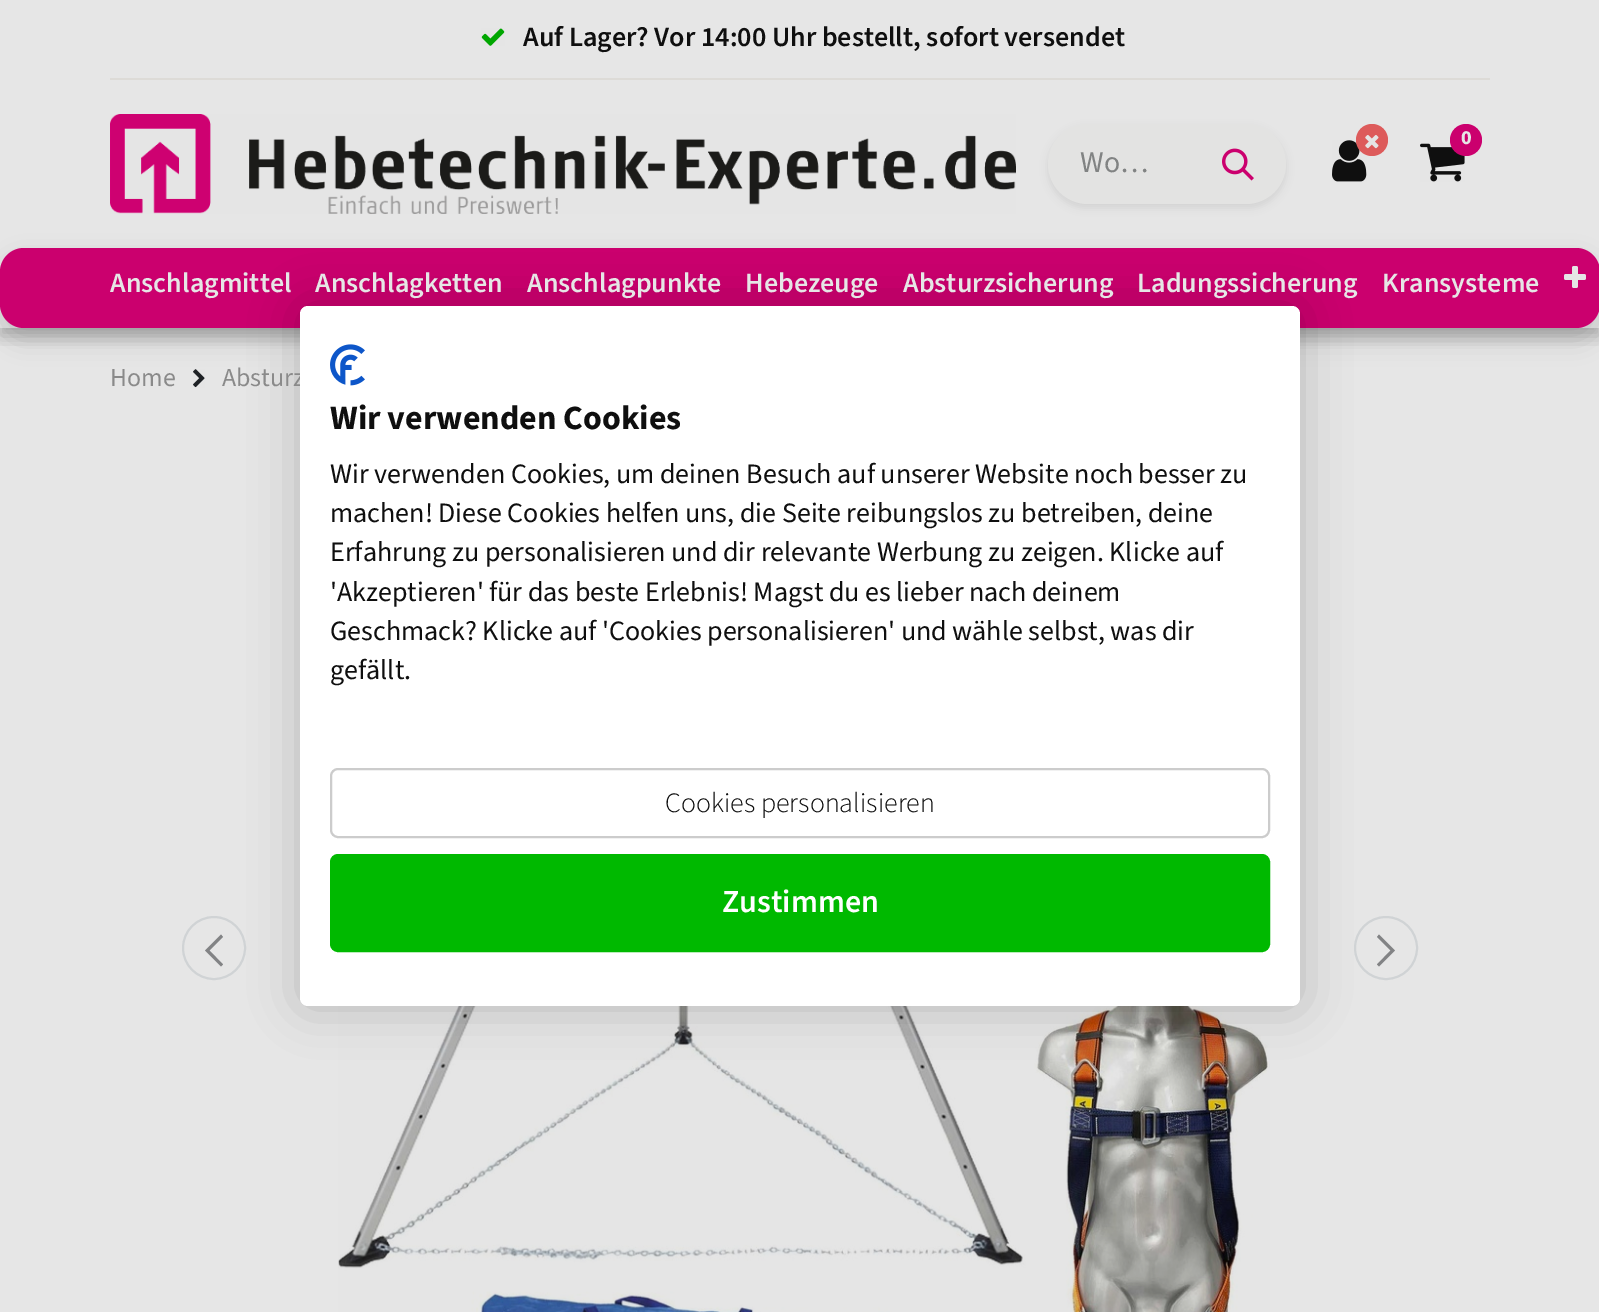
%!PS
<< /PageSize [1599 1312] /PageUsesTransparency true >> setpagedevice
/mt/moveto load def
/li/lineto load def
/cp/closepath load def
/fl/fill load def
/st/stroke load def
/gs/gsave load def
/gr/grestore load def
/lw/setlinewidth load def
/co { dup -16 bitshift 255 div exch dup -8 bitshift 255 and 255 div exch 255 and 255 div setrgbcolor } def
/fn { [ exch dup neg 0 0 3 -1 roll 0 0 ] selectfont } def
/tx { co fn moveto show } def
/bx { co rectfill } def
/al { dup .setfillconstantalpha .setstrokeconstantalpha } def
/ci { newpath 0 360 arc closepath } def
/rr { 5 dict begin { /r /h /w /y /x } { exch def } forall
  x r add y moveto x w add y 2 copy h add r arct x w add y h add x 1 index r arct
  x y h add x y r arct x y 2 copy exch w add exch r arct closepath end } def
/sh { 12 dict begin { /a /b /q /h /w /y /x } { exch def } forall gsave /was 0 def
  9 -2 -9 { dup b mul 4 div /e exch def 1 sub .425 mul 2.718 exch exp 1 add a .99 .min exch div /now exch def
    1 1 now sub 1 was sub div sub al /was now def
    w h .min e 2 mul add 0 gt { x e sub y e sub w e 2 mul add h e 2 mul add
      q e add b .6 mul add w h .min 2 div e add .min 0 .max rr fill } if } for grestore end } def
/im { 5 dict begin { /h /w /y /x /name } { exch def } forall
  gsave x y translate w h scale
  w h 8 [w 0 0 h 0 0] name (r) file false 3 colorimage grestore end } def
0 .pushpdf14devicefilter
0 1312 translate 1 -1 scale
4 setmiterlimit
0 0 1599 1312 16#E6E6E6 bx
gs
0 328 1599 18 rectclip
16#000000 co
0 8 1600 328 0 8 .2 sh
gr
110 78 1380 2 16#DDDBD7 bx
(media/1.raw) 481 28 24 18 im
(media/2.raw) 110 114 906 100 im
(media/3.raw) 1332 140 35 42 im
16#DD5B5B co
1372 140 16 ci fl
(media/4.raw) 1365 135 14 14 im
(media/5.raw) 1420 143 45 39 im
16#CB006E co
1466 140 16 ci fl
16#000000 co
1048 128 238 80 40 4 .07 sh
16#E3E3E2 co
1048 124 238 80 40 rr fl
(media/6.raw) 1222 148 32 33 im
(media/8.raw) 193 369 12 19 im
16#000000 co
0 260 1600 80 24 12 .15 sh
16#CB006E co
0 248 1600 80 24 rr fl
(media/7.raw) 1564 266 22 22 im
16#D0D3D5 co
2 lw
214 948 31 ci st
16#828385 co
205 950.5 mt 221 934.5 li 223 937 li 209.5 950.5 li 223 964.5 li 221 966.5 li cp fl
16#D0D3D5 co
1386 948 31 ci st
16#828385 co
1395 950.5 mt 1379 966.5 li 1377 964.5 li 1390.5 950.5 li 1377 937 li 1379 934.5 li cp fl
(media/9.raw) 338 1006 932 306 im
16#000000 co
300 306 1000 700 8 24 .2 sh
(Auf Lager? Vor 14:00 Uhr bestellt, sofort versendet) 523 46 /SourceSans3-SemiBold 28 16#0F0F0F tx
(0) 1461 144 /SourceSans3-ExtraBold 20 16#E6E6E6 tx
(Wo…) 1080 172 /SourceSans3-Regular 30 16#818383 tx
(Anschlagmittel) 110 292 /SourceSans3-SemiBold 28 16#E6E6E6 tx
(Anschlagketten) 315 292 /SourceSans3-SemiBold 28 16#E6E6E6 tx
(Anschlagpunkte) 527 292 /SourceSans3-SemiBold 28 16#E6E6E6 tx
(Hebezeuge) 745 292 /SourceSans3-SemiBold 28 16#E6E6E6 tx
(Absturzsicherung) 903 292 /SourceSans3-SemiBold 28 16#E6E6E6 tx
(Ladungssicherung) 1137 292 /SourceSans3-SemiBold 28 16#E6E6E6 tx
(Kransysteme) 1382 292 /SourceSans3-SemiBold 28 16#E6E6E6 tx
(Home) 110 386 /SourceSans3-Regular 26 16#8A8A8A tx
(Absturz) 222 386 /SourceSans3-Regular 26 16#8A8A8A tx
16#FFFFFF co
300 306 1000 700 8 rr fl
(media/10.raw) 330 344 35 42 im
(Wir verwenden Cookies) 330 429 /SourceSans3-Bold 34 16#0F0F0F tx
(Wir verwenden Cookies, um deinen Besuch auf unserer Website noch besser zu) 330 483 /SourceSans3-Regular 28 16#0F0F0F tx
(machen! Diese Cookies helfen uns, die Seite reibungslos zu betreiben, deine) 330 522 /SourceSans3-Regular 28 16#0F0F0F tx
(Erfahrung zu personalisieren und dir relevante Werbung zu zeigen. Klicke auf) 330 561 /SourceSans3-Regular 28 16#0F0F0F tx
('Akzeptieren' für das beste Erlebnis! Magst du es lieber nach deinem) 330 601 /SourceSans3-Regular 28 16#0F0F0F tx
(Geschmack? Klicke auf 'Cookies personalisieren' und wähle selbst, was dir) 330 640 /SourceSans3-Regular 28 16#0F0F0F tx
(gefällt.) 330 679 /SourceSans3-Regular 28 16#0F0F0F tx
16#CCCCCC co
331 769 938 68 7 rr st
(Cookies personalisieren) 665 812 /SourceSans3-Light 28 16#0F0F0F tx
16#00B900 co
331 855 938 96 7 rr gs fl gr
st
(Zustimmen) 722 912 /SourceSans3-SemiBold 32 16#FFFFFF tx
.poppdf14devicefilter showpage
